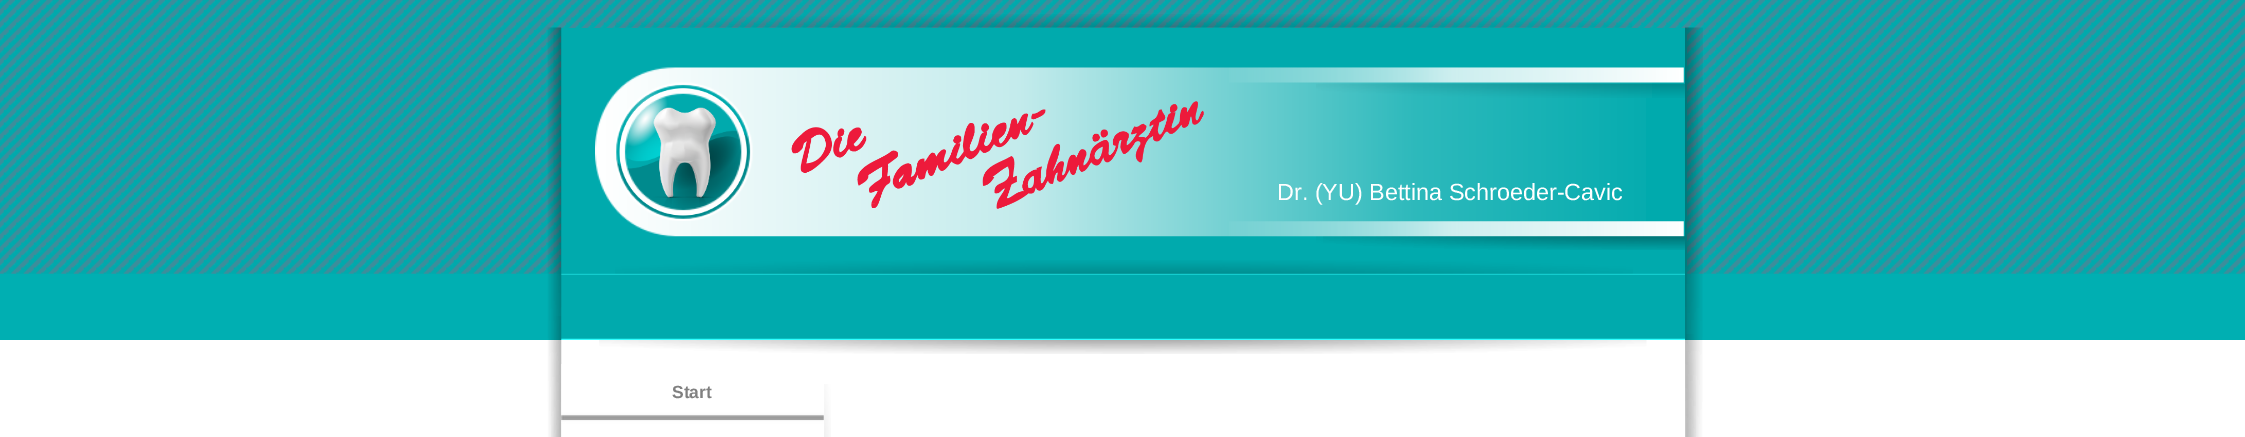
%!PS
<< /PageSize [2245 437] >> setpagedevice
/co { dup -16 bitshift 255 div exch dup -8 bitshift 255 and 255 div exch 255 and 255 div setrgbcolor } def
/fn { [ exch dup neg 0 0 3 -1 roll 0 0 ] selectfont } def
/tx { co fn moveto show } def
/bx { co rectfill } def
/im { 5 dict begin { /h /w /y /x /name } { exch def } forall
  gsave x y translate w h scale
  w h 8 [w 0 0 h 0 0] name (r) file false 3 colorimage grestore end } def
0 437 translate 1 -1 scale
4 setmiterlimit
0 0 2245 437 16#FFFFFF bx
(media/1.raw) 0 0 2245 340 im
(media/2.raw) 615 14 1017 14 im
561 28 1126 312 16#00AAAD bx
(media/18.raw) 561 273 1124 2 im
(media/19.raw) 552 316 9 121 im
(media/20.raw) 561 338 1124 2 im
(media/3.raw) 547 27 15 410 im
(media/4.raw) 548 27 14 410 im
(media/5.raw) 1685 27 18 410 im
(media/6.raw) 1685 27 18 410 im
(media/7.raw) 595 67 1051 170 im
(media/8.raw) 1229 67 455 16 im
(media/11.raw) 615 84 136 136 im
(media/9.raw) 615 82 138 139 im
(media/10.raw) 1316 83 369 15 im
(media/12.raw) 620 88 127 127 im
(media/13.raw) 791 101 413 108 im
(media/14.raw) 1229 221 455 16 im
(media/15.raw) 1316 236 369 14 im
(media/16.raw) 1323 236 362 14 im
(media/17.raw) 615 260 1018 14 im
(media/21.raw) 1686 334 10 103 im
(media/23.raw) 601 340 1046 14 im
(media/22.raw) 599 340 1047 14 im
(media/24.raw) 561 364 263 56 im
(media/25.raw) 561 420 263 17 im
(media/26.raw) 824 384 7 53 im
(Dr. \(YU\) Bettina Schroeder-Cavic) 1277 200 /LiberationSans-Regular 23.4 16#FFFFFF tx
(Start) 672 398 /LiberationSans-Bold 17.5 16#808080 tx
showpage
